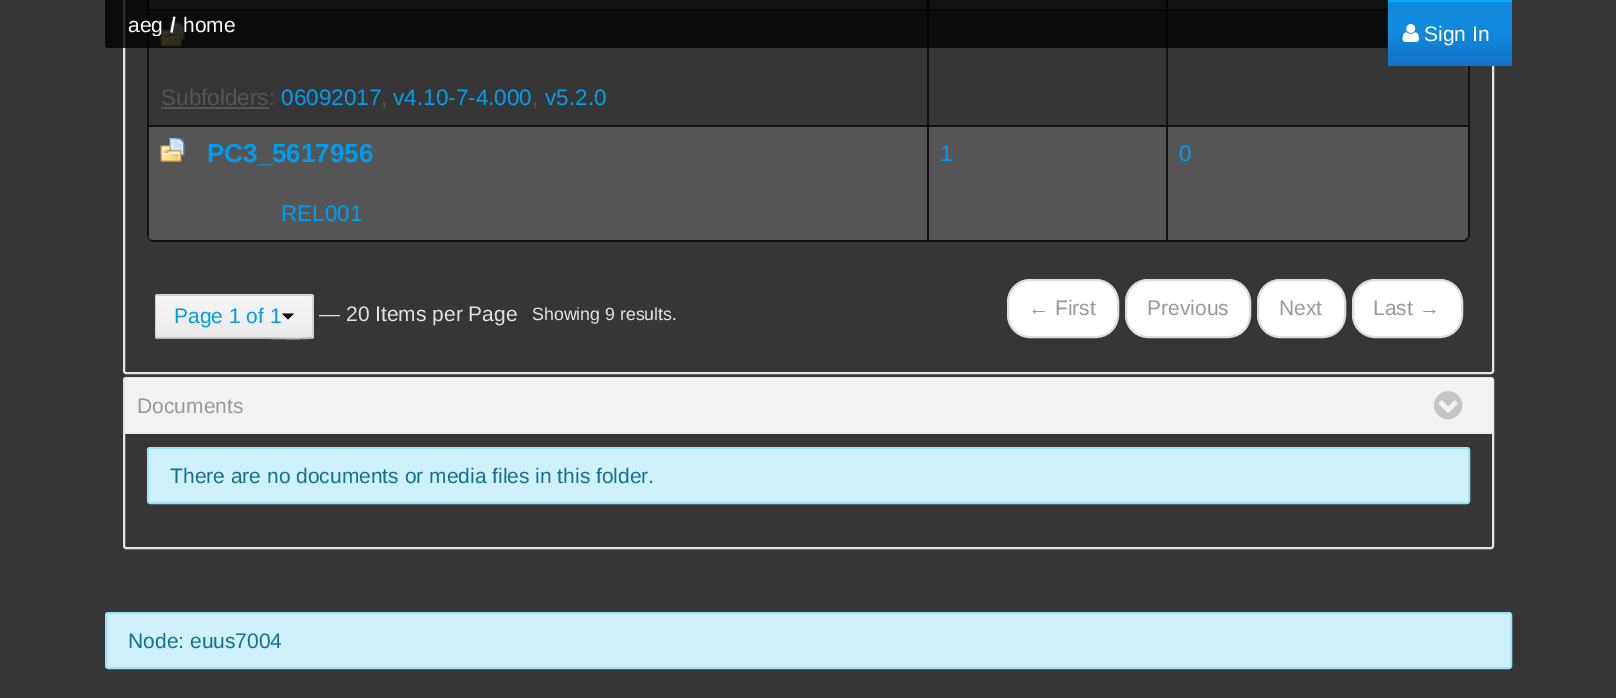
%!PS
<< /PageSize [1616 698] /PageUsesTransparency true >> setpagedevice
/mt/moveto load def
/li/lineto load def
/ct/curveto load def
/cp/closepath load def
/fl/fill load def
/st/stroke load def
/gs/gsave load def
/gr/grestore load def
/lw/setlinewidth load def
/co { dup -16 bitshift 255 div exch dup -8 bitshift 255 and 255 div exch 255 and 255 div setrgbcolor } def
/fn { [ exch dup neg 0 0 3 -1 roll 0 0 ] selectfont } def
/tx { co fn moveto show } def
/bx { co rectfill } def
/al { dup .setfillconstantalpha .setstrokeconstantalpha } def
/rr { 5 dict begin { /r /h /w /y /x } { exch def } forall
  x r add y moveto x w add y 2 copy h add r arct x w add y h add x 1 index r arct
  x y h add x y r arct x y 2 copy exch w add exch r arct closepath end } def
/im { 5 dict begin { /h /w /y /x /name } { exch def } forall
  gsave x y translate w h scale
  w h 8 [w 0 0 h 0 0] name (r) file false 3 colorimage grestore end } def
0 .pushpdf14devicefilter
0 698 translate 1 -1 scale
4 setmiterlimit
0 0 1616 698 16#363636 bx
16#E5E5E5 co
2 lw
124 -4 1369 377 2 rr st
16#111111 co
154 -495 mt 1462 -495 li 1467 -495 1470 -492 1470 -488 ct 1470 234 li 1470 238 1467 242 1462 242 ct 154 242 li 150 242 147 238 147 234 ct 147 -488 li 147 -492 150 -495 154 -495 ct cp 154 -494 mt 1462 -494 li 1466 -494 1468 -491 1468 -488 ct 1468 234 li 1468 237 1466 240 1462 240 ct 154 240 li 150 240 147 237 147 234 ct 147 -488 li 147 -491 150 -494 154 -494 ct cp eofill
149 0 778 9 16#555555 bx
147 0 2 9 16#111111 bx
929 0 237 9 16#555555 bx
927 0 2 9 16#111111 bx
1168 0 220 9 16#555555 bx
1166 0 2 9 16#111111 bx
147 9 1241 2 16#111111 bx
147 9 2 116 16#111111 bx
(media/2.raw) 160 22 25 25 im
927 9 2 116 16#111111 bx
1166 9 2 116 16#111111 bx
0.8 al
16#000000 co
105 0 mt 1512 0 li 1512 45 li 1512 46.5 1510.5 48 1509 48 ct 108 48 li 106.5 48 105 46.5 105 45 ct cp fl
1 al
1388 0 124 2 16#00AEFF bx
gs 1388 2 mt 1512 2 li 1512 66 li 1388 66 li cp clip newpath
<< /ShadingType 2 /ColorSpace /DeviceRGB /Coords [1450 1.5 1450 66] /Extend [true true] /Function << /FunctionType 3 /Domain [0 1] /Functions [<< /FunctionType 2 /Domain [0 1] /C0 [.067 .541 .871] /C1 [.067 .541 .871] /N 1 >> << /FunctionType 2 /Domain [0 1] /C0 [.067 .541 .871] /C1 [.071 .451 .78] /N 1 >>] /Bounds [.47] /Encode [0 1 0 1] >> >> shfill gr
(media/1.raw) 1402 24 17 18 im
161 107 108 2 16#555555 bx
147 125 mt 147 234 li 147 237 150 240 154 240 ct 927 240 li 927 125 li cp fl
147 125 1019 2 16#111111 bx
147 125 mt 147 234 li 147 236 148 237 149 238 ct 149 125 li cp fl
(media/3.raw) 160 138 25 24 im
929 127 237 113 16#555555 bx
927 125 2 115 16#111111 bx
16#555555 co
1166 125 mt 1166 240 li 1462 240 li 1466 240 1468 237 1468 234 ct 1468 125 li cp fl
1166 125 302 2 16#111111 bx
1166 125 2 115 16#111111 bx
16#F1F1F1 co
155 294 159 45 3 rr fl
gs
155 294 159 45 3 rr clip newpath
gs 155 296 mt 314 296 li 314 338 li 155 338 li cp clip newpath
<< /ShadingType 2 /ColorSpace /DeviceRGB /Coords [234 296 234 338] /Extend [true true] /Function << /FunctionType 2 /Domain [0 1] /C0 [.965 .965 .965] /C1 [.918 .918 .918] /N 1 >> >> shfill gr
gr
16#B5B5B5 co
1.5 lw
312 337.5 mt 310.5 339.5 263 338 259.5 338 ct 157.5 338 li 156 337.5 li st
gs
155 279 1308 72 rectclip
16#CFCFCF co
156 337.5 mt 154 336 155 325.5 155 323 ct 155 303.5 li 155 302.5 153.5 295 157.5 295 ct 310.5 295 li 314.5 295 313 302.5 313 303.5 ct 313 323 li 313 325.5 314 336 312 337.5 ct st
gr
16#000000 co
282 313.5 mt 294 313.5 li 288 319.5 li cp fl
16#FFFFFF co
1008 280 110 57 22 rr gs fl gr
16#DDDDDD co
2 lw
st
16#FFFFFF co
1126 280 124 57 22 rr gs fl gr
16#DDDDDD co
st
16#FFFFFF co
1258 280 87 57 22 rr gs fl gr
16#DDDDDD co
st
16#FFFFFF co
1353 280 109 57 22 rr gs fl gr
16#DDDDDD co
st
16#E5E5E5 co
124 378 1369 170 2 rr st
125 378 1368 54 16#F2F2F2 bx
(media/4.raw) 1434 391 29 29 im
125 432 1368 2 16#EEEEEE bx
16#CEF1FC co
148 448 1321 55 2 rr gs fl gr
16#9EE3F9 co
st
16#CEF1FC co
106 613 1405 55 2 rr gs fl gr
16#9EE3F9 co
st
gs
128 12 34 24 rectclip
(aeg) 128 32 /LiberationSans-Regular 21 16#FFFFFF tx
gr
(/) 170 32 /LiberationSans-Bold 21 16#FFFFFF tx
(home) 183 32 /LiberationSans-Regular 21 16#FFFFFF tx
(Sign In) 1424 41 /LiberationSans-Regular 21 16#FFFFFF tx
(Subfolders:) 161 105 /LiberationSans-Regular 22.5 16#555555 tx
(06092017) 281 105 /LiberationSans-Regular 22.5 16#009CEB tx
(,) 381 105 /LiberationSans-Regular 22.5 16#555555 tx
(v4.10-7-4.000) 393 105 /LiberationSans-Regular 22.5 16#009CEB tx
(,) 532 105 /LiberationSans-Regular 22.5 16#555555 tx
(v5.2.0) 545 105 /LiberationSans-Regular 22.5 16#009CEB tx
(PC3_5617956) 207 162 /LiberationSans-Bold 26 16#009CEB tx
(REL001) 281 221 /LiberationSans-Regular 22.5 16#009CEB tx
(1) 940 161 /LiberationSans-Regular 22.5 16#009CEB tx
(0) 1179 161 /LiberationSans-Regular 22.5 16#009CEB tx
(Page 1 of 1) 174 323 /LiberationSans-Regular 21 16#009CEB tx
(— 20 Items per Page) 319 321 /LiberationSans-Regular 21 16#E3E3E3 tx
(Showing 9 results.) 532 320 /LiberationSans-Regular 17.75 16#E3E3E3 tx
(← First) 1028 315 /LiberationSans-Regular 21 16#999999 tx
(Previous) 1147 315 /LiberationSans-Regular 21 16#999999 tx
(Next) 1279 315 /LiberationSans-Regular 21 16#999999 tx
(Last →) 1373 315 /LiberationSans-Regular 21 16#999999 tx
(Documents) 137 413 /LiberationSans-Regular 21 16#999999 tx
(There are no documents or media files in this folder.) 170 483 /LiberationSans-Regular 21 16#12718F tx
(Node: euus7004) 128 648 /LiberationSans-Regular 21 16#12718F tx
.poppdf14devicefilter showpage
